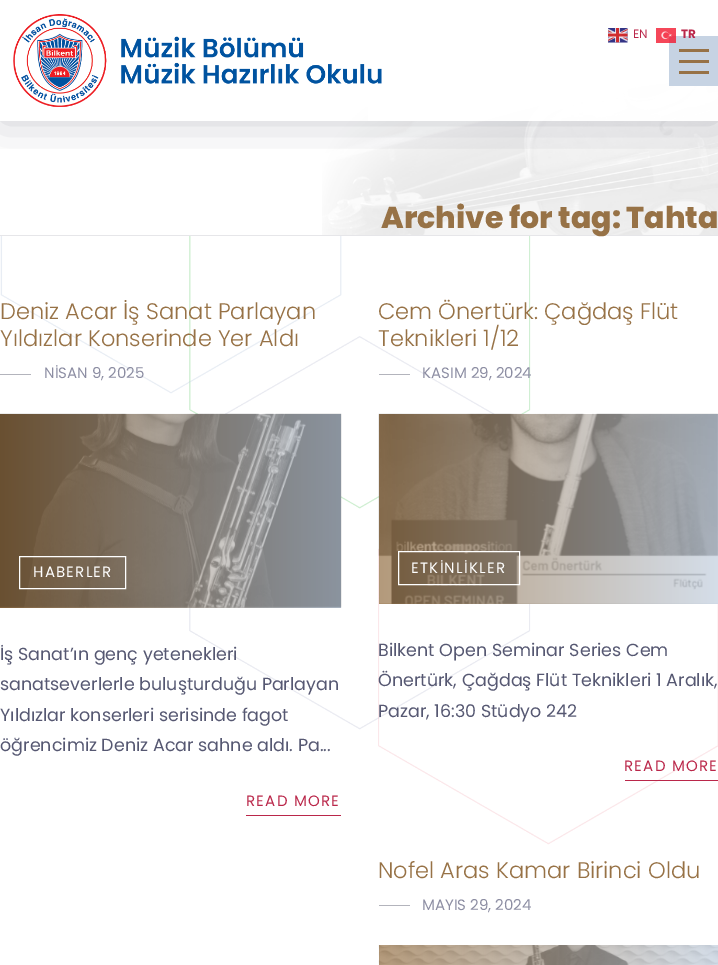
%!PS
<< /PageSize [718 965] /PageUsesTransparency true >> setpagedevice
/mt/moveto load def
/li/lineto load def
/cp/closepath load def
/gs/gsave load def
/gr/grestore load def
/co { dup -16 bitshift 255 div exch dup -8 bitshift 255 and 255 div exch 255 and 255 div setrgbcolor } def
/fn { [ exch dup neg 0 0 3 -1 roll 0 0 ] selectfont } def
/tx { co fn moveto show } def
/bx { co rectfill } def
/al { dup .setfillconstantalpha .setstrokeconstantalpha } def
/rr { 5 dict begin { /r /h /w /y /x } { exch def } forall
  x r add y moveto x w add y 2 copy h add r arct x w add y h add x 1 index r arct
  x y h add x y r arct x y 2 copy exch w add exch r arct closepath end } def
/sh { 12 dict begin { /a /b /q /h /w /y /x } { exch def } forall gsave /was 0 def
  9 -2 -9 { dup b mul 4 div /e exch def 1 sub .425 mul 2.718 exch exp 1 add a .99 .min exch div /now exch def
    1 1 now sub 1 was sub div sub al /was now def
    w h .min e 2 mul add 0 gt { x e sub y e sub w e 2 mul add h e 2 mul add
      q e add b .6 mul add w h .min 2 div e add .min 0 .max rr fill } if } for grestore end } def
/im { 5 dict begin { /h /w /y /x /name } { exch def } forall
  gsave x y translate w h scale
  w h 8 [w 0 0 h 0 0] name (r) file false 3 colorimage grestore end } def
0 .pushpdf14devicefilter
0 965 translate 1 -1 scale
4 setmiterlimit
0 0 718 965 16#FFFFFF bx
(media/5.raw) 322 62 396 173 im
gs
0 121 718 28 rectclip
16#020620 co
0 0 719 121 0 22 .2 sh
gr
(media/1.raw) 608 28 20 15 im
0.95 al
368 62 350 59 16#FFFFFF bx
1 al
669 36 49 50 16#C6D3E3 bx
(media/2.raw) 656 28 20 15 im
(media/3.raw) 0 236 718 609 im
(media/4.raw) 13 14 369 93 im
679 49 30 3 16#977246 bx
679 71 30 3 16#977246 bx
679 60 30 3 16#977246 bx
0 235 718 1 16#E6E6E9 bx
0 374 31 1 16#B3B4BC bx
gs 0 414 mt 341 414 li 341 608 li 0 608 li cp clip newpath
<< /ShadingType 2 /ColorSpace /DeviceRGB /Coords [0 511 341 511] /Extend [true true] /Function << /FunctionType 2 /Domain [0 1] /C0 [.592 .447 .275] /C1 [.776 .827 .89] /N 1 >> >> shfill gr
(media/6.raw) 0 413 342 195 im
16#FFFFFF co
19.5 556.5 106 32 rectstroke
246 815 95 1 16#BA274A bx
379 374 31 1 16#B3B4BC bx
gs 379 414 mt 718 414 li 718 604 li 379 604 li cp clip newpath
<< /ShadingType 2 /ColorSpace /DeviceRGB /Coords [379 509 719 509] /Extend [true true] /Function << /FunctionType 2 /Domain [0 1] /C0 [.592 .447 .275] /C1 [.776 .827 .89] /N 1 >> >> shfill gr
(media/7.raw) 378 413 340 191 im
16#FFFFFF co
398.5 551.5 121 33 rectstroke
625 780 93 1 16#BA274A bx
379 905 31 1 16#B3B4BC bx
gs 379 945 mt 718 945 li 718 965 li 379 965 li cp clip newpath
<< /ShadingType 2 /ColorSpace /DeviceRGB /Coords [379 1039 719 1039] /Extend [true true] /Function << /FunctionType 2 /Domain [0 1] /C0 [.592 .447 .275] /C1 [.776 .827 .89] /N 1 >> >> shfill gr
(media/8.raw) 378 945 340 20 im
(EN) 633 38 /Poppins-Regular 12 16#BA274A tx
(TR) 681 38 /Poppins-Bold 12 16#BA274A tx
(Archive for tag: Tahta) 381 228 /Poppins-ExtraBold 30 16#977246 tx
(Deniz Acar İş Sanat Parlayan) 0 319 /Poppins-Light 22.5 16#977246 tx
(Yıldızlar Konserinde Yer Aldı) 0 346 /Poppins-Light 22.5 16#977246 tx
(NİSAN 9, 2025) 44 378 /Poppins-Regular 15 16#8D8EA3 tx
16#FFFFFF co
33 577 mt 1.25 0 (HABERLER) ashow
(İş Sanat’ın genç yetenekleri) 0 660 /Poppins-Regular 17.5 16#565872 tx
(sanatseverlerle buluşturduğu Parlayan) 0 690 /Poppins-Regular 17.5 16#565872 tx
(Yıldızlar konserleri serisinde fagot) 0 721 /Poppins-Regular 17.5 16#565872 tx
(öğrencimiz Deniz Acar sahne aldı. Pa...) 0 751 /Poppins-Regular 17.5 16#565872 tx
/Poppins-Regular 15 fn
16#BA274A co
246 806 mt 1.25 0 (READ MORE) ashow
(Cem Önertürk: Çağdaş Flüt) 378 319 /Poppins-Light 22.5 16#977246 tx
(Teknikleri 1/12) 378 346 /Poppins-Light 22.5 16#977246 tx
(KASIM 29, 2024) 422 378 /Poppins-Regular 15 16#8D8EA3 tx
16#FFFFFF co
411 573 mt 1.25 0 (ETKİNLİKLER) ashow
(Bilkent Open Seminar Series Cem) 378 656 /Poppins-Regular 17.5 16#565872 tx
(Önertürk, Çağdaş Flüt Teknikleri 1 Aralık,) 378 686 /Poppins-Regular 17.5 16#565872 tx
(Pazar, 16:30 Stüdyo 242) 378 717 /Poppins-Regular 17.5 16#565872 tx
/Poppins-Regular 15 fn
16#BA274A co
624 771 mt 1.25 0 (READ MORE) ashow
(Nofel Aras Kamar Birinci Oldu) 378 878 /Poppins-Light 22.5 16#977246 tx
(MAYIS 29, 2024) 422 910 /Poppins-Regular 15 16#8D8EA3 tx
.poppdf14devicefilter showpage
